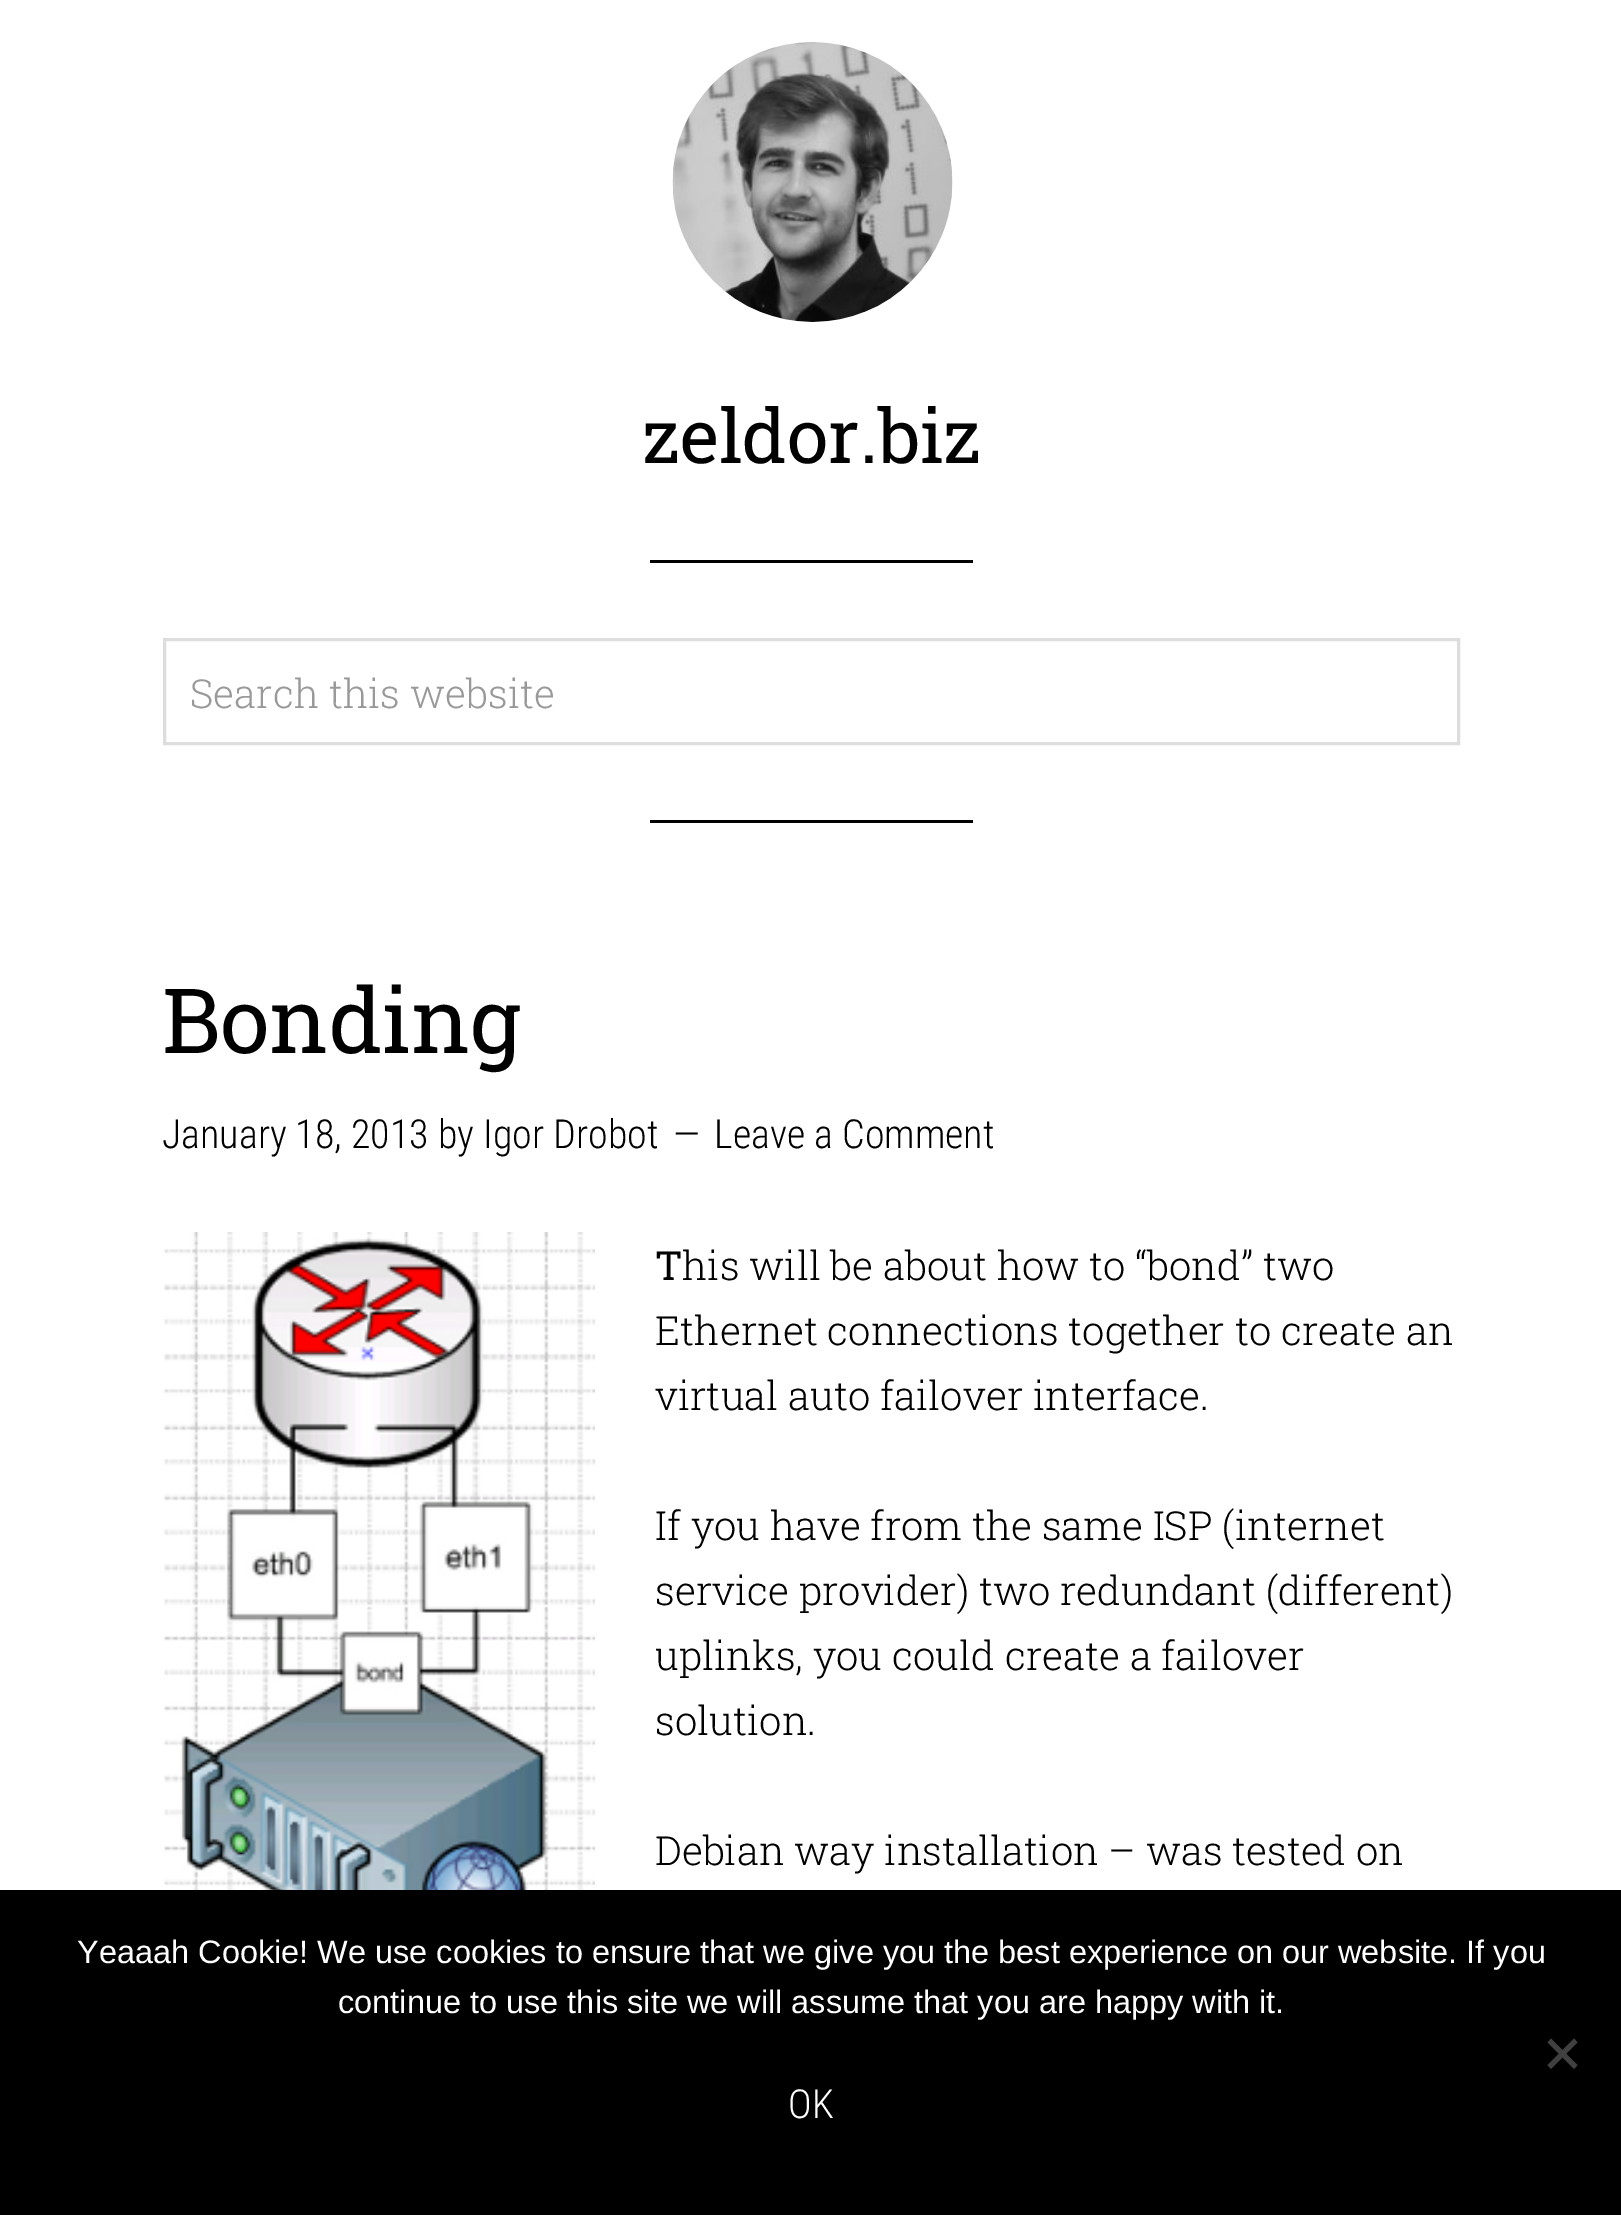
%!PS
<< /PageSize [1621 2215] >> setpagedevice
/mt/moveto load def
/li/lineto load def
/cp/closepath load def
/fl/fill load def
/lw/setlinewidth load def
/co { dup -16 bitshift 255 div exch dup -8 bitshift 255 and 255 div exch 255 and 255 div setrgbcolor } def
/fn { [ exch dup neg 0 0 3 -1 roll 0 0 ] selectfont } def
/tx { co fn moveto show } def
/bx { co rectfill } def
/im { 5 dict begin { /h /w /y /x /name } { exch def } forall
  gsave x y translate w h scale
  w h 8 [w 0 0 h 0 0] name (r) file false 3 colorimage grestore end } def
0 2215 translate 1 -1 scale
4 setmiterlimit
0 0 1621 2215 16#FFFFFF bx
(media/1.raw) 672 42 281 280 im
650 560 323 3 16#000000 bx
16#DDDDDD co
3 lw
164.5 639.5 1294 104 rectstroke
650 820 323 3 16#000000 bx
(media/2.raw) 163 1232 432 658 im
0 1890 1621 325 16#000000 bx
16#404040 co
1574 2038.5 mt 1577.5 2042.5 li 1551 2069 li 1547.5 2065 li cp fl
1547.5 2042.5 mt 1551 2038.5 li 1577.5 2065 li 1574 2069 li cp fl
(zeldor.biz) 642 463 /RobotoSlab-Regular 75 16#000000 tx
(Search this website) 190 708 /RobotoSlab-Light 40 16#999999 tx
(Bonding) 162 1053 /RobotoSlab-Regular 90 16#000000 tx
(January 18, 2013 by Igor Drobot) 162 1148 /RobotoCondensed-Light 40 16#000000 tx
(—) 673 1148 /RobotoCondensed-Light 40 16#000000 tx
(Leave a Comment) 714 1148 /RobotoCondensed-Light 40 16#000000 tx
(T) 655 1280 /RobotoSlab-Regular 40 16#000000 tx
(his will be about how to “bond” two) 682 1280 /RobotoSlab-Light 40 16#000000 tx
(Ethernet connections together to create an) 655 1345 /RobotoSlab-Light 40 16#000000 tx
(virtual auto failover interface.) 655 1410 /RobotoSlab-Light 40 16#000000 tx
(If you have from the same ISP \(internet) 655 1540 /RobotoSlab-Light 40 16#000000 tx
(service provider\) two redundant \(different\)) 655 1605 /RobotoSlab-Light 40 16#000000 tx
(uplinks, you could create a failover) 655 1670 /RobotoSlab-Light 40 16#000000 tx
(solution.) 655 1735 /RobotoSlab-Light 40 16#000000 tx
(Debian way installation – was tested on) 655 1865 /RobotoSlab-Light 40 16#000000 tx
(Yeaaah Cookie! We use cookies to ensure that we give you the best experience on our website. If you) 77 1963 /LiberationSans-Regular 32.5 16#FFFFFF tx
(continue to use this site we will assume that you are happy with it.) 338 2013 /LiberationSans-Regular 32.5 16#FFFFFF tx
(OK) 788 2118 /RobotoCondensed-Light 40 16#FFFFFF tx
showpage
